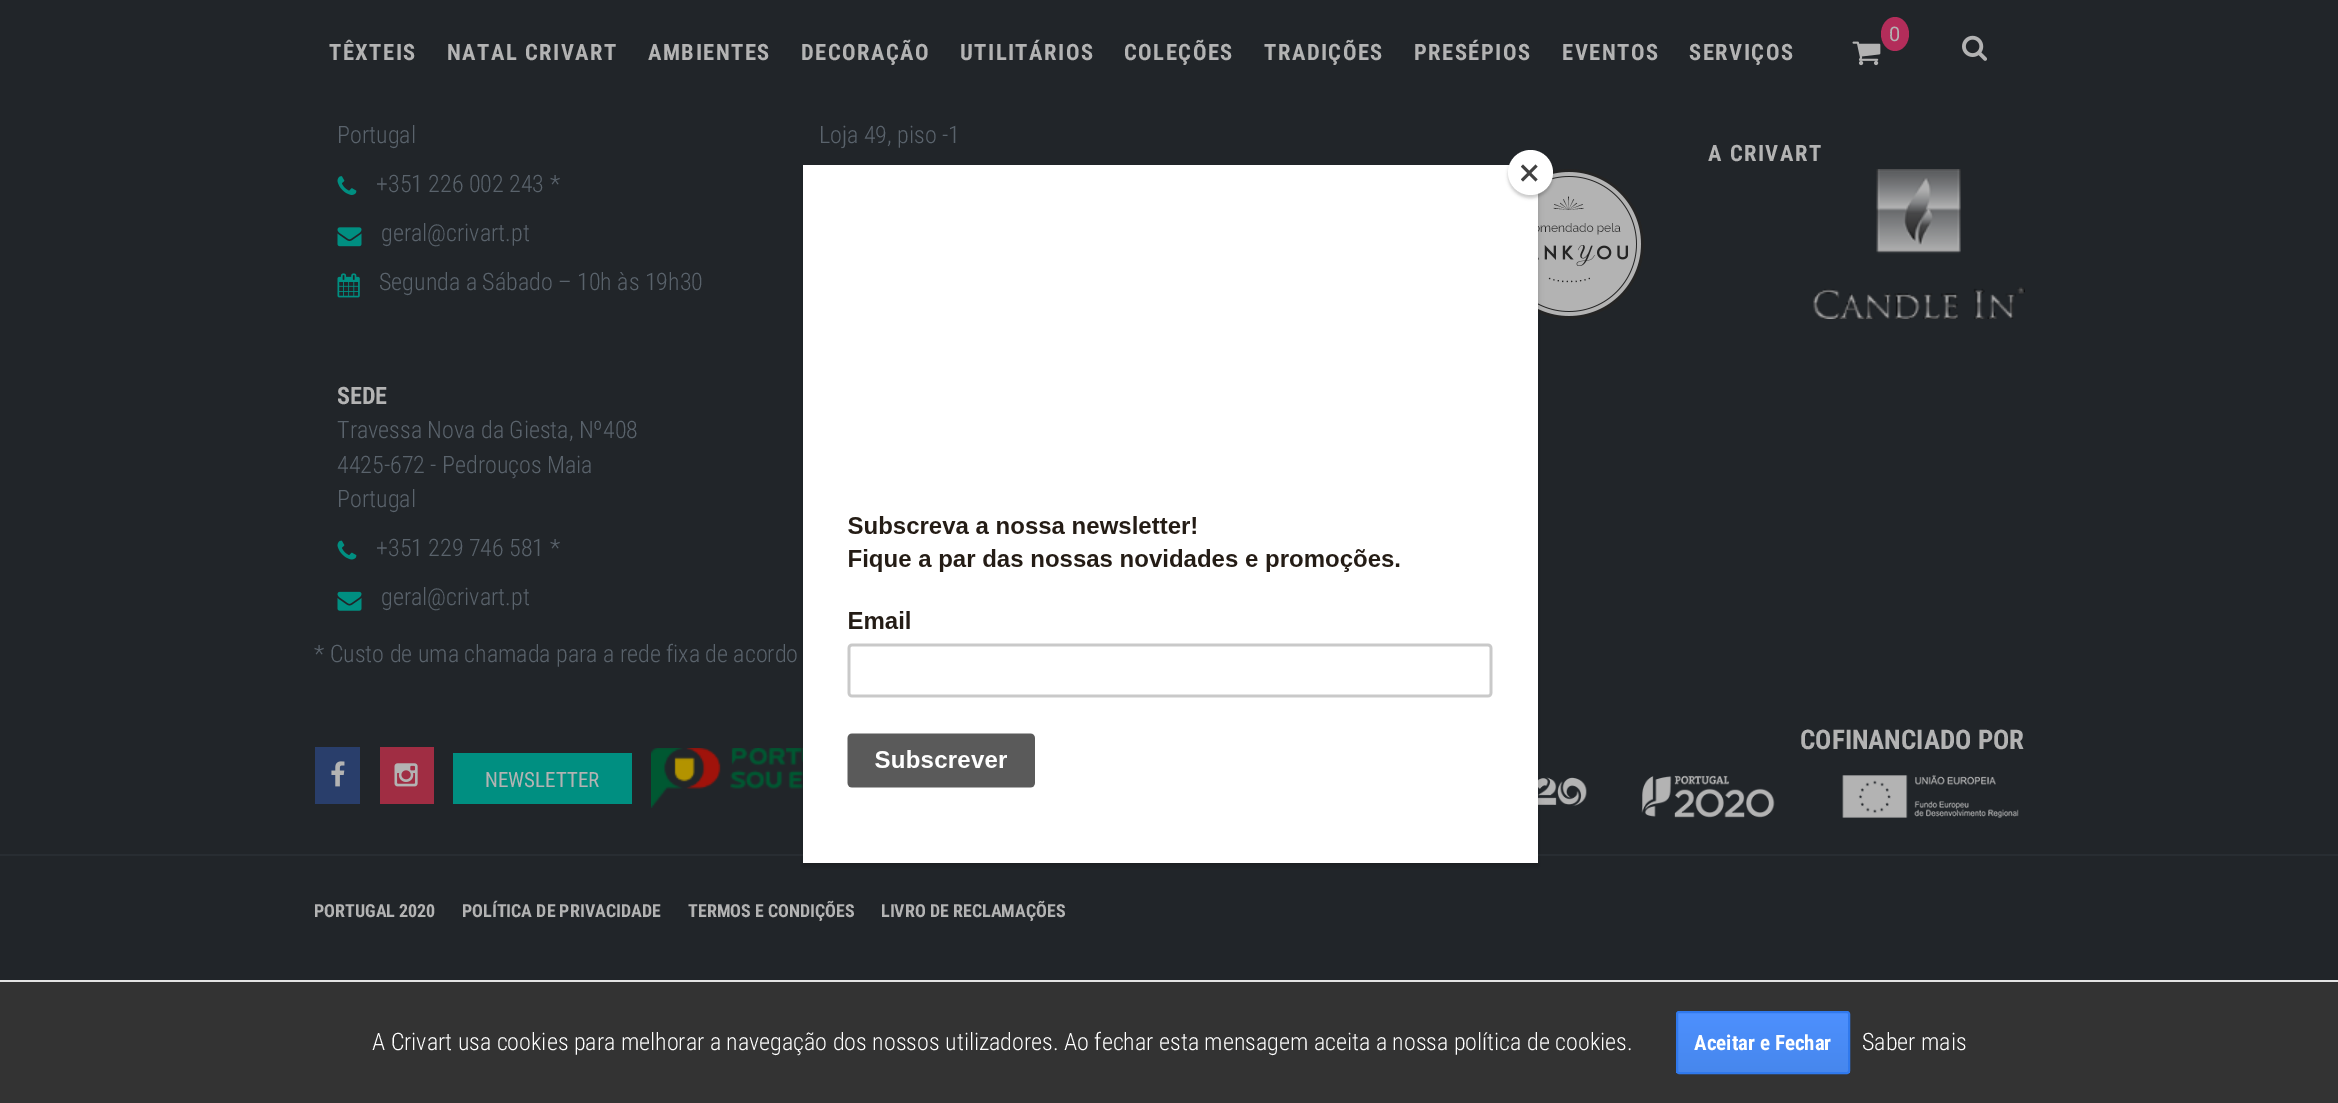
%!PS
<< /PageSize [2338 1103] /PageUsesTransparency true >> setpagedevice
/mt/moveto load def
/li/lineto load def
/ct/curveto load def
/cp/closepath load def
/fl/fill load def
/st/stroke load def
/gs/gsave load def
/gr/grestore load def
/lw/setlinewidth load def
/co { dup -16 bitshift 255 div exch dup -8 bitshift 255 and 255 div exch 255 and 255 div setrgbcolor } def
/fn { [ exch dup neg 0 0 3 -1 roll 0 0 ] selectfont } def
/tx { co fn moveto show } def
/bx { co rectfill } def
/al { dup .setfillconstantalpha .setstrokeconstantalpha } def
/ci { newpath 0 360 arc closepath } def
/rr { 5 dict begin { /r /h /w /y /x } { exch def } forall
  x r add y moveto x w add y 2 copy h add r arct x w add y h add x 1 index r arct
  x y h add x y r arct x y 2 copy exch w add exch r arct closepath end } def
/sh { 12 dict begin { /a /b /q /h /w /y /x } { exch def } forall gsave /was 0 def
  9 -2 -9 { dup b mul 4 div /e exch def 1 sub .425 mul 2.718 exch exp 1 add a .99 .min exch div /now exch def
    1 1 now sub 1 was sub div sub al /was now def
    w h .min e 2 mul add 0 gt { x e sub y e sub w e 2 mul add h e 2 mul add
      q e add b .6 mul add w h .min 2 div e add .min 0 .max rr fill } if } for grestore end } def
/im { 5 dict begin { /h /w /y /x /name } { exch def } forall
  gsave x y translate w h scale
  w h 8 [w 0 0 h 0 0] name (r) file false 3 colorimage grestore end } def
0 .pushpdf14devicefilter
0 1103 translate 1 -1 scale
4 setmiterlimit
0 0 2338 1103 16#212529 bx
16#B32D5A co
1895 17 mt 1902.5 17 1909 24.5 1909 34 ct 1909 43.5 1902.5 51 1895 51 ct 1887.5 51 1881 43.5 1881 34 ct 1881 24.5 1887.5 17 1895 17 ct cp fl
(media/1.raw) 1852 41 29 25 im
(media/2.raw) 1962 35 25 26 im
(media/3.raw) 337 176 20 19 im
(media/4.raw) 337 227 25 20 im
(media/5.raw) 337 273 23 25 im
(media/6.raw) 337 540 20 20 im
(media/7.raw) 337 591 25 20 im
(media/8.raw) 1538 169 106 150 im
(media/9.raw) 1813 169 212 150 im
(media/10.raw) 1538 775 481 43 im
315 747 45 57 16#293E6B bx
(media/11.raw) 331 761 14 26 im
380 747 54 57 16#A02D43 bx
(media/12.raw) 394 763 24 24 im
453 753 179 51 16#008F81 bx
(media/13.raw) 651 748 152 60 im
0 854 2338 2 16#282D32 bx
16#000000 co
803 168 735 698 0 3 .2 sh
(media/14.raw) 803 165 735 698 im
1508 153 45 45 22.5 1.5 .2 sh
16#FFFFFF co
1530.5 172.5 22.5 ci fl
16#414141 co
1535.5 164.5 mt 1537.5 166.5 li 1523 181.5 li 1521 179.5 li cp fl
1521 166.5 mt 1523 164.5 li 1537.5 179.5 li 1535.5 181.5 li cp fl
0 982 2338 121 16#333333 bx
0 980 2338 2 16#E4E4E4 bx
gs
1676 1011 174 63 3 rr clip newpath
gs 1676 1013 mt 1850 1013 li 1850 1073 li 1676 1073 li cp clip newpath
<< /ShadingType 2 /ColorSpace /DeviceRGB /Coords [1763 1013 1763 1073] /Extend [true true] /Function << /FunctionType 2 /Domain [0 1] /C0 [.302 .565 .996] /C1 [.278 .529 .929] /N 1 >> >> shfill gr
gr
16#3079ED co
2 lw
1677 1012 172 61 2 rr st
/RobotoCondensed-Bold 22.5 fn
16#B3B3B3 co
329 60 mt 1.5 0 (TÊXTEIS) ashow
447 60 mt 1.5 0 (NATAL CRIVART) ashow
648 60 mt 1.5 0 (AMBIENTES) ashow
801 60 mt 1.5 0 (DECORAÇÃO) ashow
960 60 mt 1.5 0 (UTILITÁRIOS) ashow
1124 60 mt 1.5 0 (COLEÇÕES) ashow
1264 60 mt 1.5 0 (TRADIÇÕES) ashow
1414 60 mt 1.5 0 (PRESÉPIOS) ashow
1562 60 mt 1.5 0 (EVENTOS) ashow
1689 60 mt 1.5 0 (SERVIÇOS) ashow
/Roboto-Regular 20 fn
1889 41 mt 1.5 0 (0) ashow
/RobotoCondensed-Bold 22.5 fn
1708 161 mt 1.5 0 (A CRIVART) ashow
(Portugal) 337 143 /RobotoCondensed-Light 24 16#5A636C tx
(+351 226 002 243 *) 376 192 /RobotoCondensed-Light 24 16#5A636C tx
(geral@crivart.pt) 381 241 /RobotoCondensed-Light 24 16#5A636C tx
(Segunda a Sábado – 10h às 19h30) 379 290 /RobotoCondensed-Light 24 16#5A636C tx
(Loja 49, piso -1) 819 143 /RobotoCondensed-Light 24 16#5A636C tx
(SEDE) 337 404 /RobotoCondensed-Bold 24 16#B3B3B3 tx
(Travessa Nova da Giesta, Nº408) 337 438 /RobotoCondensed-Light 24 16#5A636C tx
(4425-672 - Pedrouços Maia) 337 473 /RobotoCondensed-Light 24 16#5A636C tx
(Portugal) 337 507 /RobotoCondensed-Light 24 16#5A636C tx
(+351 229 746 581 *) 376 556 /RobotoCondensed-Light 24 16#5A636C tx
(geral@crivart.pt) 381 605 /RobotoCondensed-Light 24 16#5A636C tx
(* Custo de uma chamada para a rede fixa de acordo) 314 662 /RobotoCondensed-Light 24 16#5A636C tx
(COFINANCIADO POR) 1800 749 /RobotoCondensed-Bold 27 16#B3B3B3 tx
(NEWSLETTER) 485 787 /RobotoCondensed-Regular 21 16#B3B3B3 tx
(PORTUGAL 2020) 314 917 /RobotoCondensed-Bold 18 16#B3B3B3 tx
(POLÍTICA DE PRIVACIDADE) 462 917 /RobotoCondensed-Bold 18 16#B3B3B3 tx
(TERMOS E CONDIÇÕES) 688 917 /RobotoCondensed-Bold 18 16#B3B3B3 tx
(LIVRO DE RECLAMAÇÕES) 881 917 /RobotoCondensed-Bold 18 16#B3B3B3 tx
(A Crivart usa cookies para melhorar a navegação dos nossos utilizadores. Ao fechar esta mensagem aceita a nossa política de cookies.) 372 1050 /RobotoCondensed-Light 24 16#FFFFFF tx
(Aceitar e Fechar) 1694 1050 /RobotoCondensed-Bold 21 16#FFFFFF tx
(Saber mais) 1862 1050 /RobotoCondensed-Light 24 16#FFFFFF tx
.poppdf14devicefilter showpage
